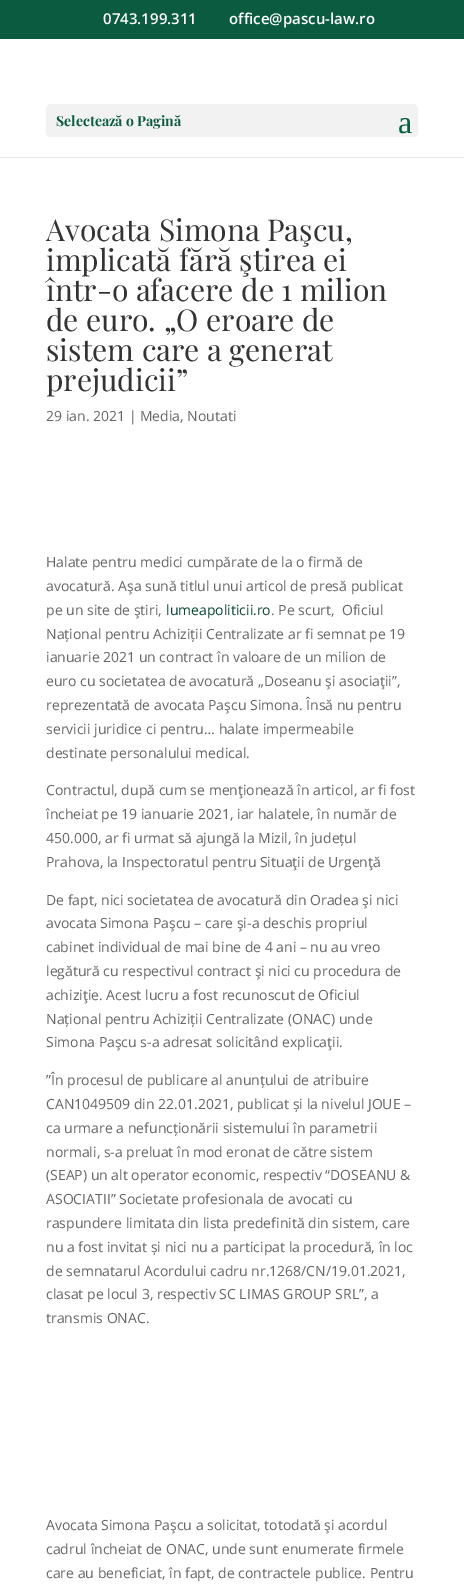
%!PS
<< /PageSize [464 1595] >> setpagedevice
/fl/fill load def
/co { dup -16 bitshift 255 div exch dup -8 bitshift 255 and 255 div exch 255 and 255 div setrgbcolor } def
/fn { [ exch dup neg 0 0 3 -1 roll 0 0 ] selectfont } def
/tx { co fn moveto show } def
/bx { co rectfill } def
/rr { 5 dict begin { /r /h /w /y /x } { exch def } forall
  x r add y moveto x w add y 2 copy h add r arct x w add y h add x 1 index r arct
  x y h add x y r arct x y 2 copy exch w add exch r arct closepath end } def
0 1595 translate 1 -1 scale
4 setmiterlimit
0 0 464 1595 16#FFFFFF bx
0 0 464 39 16#0B5B41 bx
0 157 464 1 16#E6E6E6 bx
16#F2F2F2 co
46 104 372 33 5 rr fl
(0743.199.311) 103 24 /OpenSans-SemiBold 15 16#FFFFFF tx
(office@pascu-law.ro) 229 24 /OpenSans-SemiBold 15 16#FFFFFF tx
(Selectează o Pagină) 56 126 /PlayfairDisplay-Bold 14 16#0B5B41 tx
(a) 398 133 /LiberationSerif-Regular 32 16#0B5B41 tx
(Avocata Simona Paşcu,) 46 241 /PlayfairDisplay-Regular 30 16#333333 tx
(implicată fără ştirea ei) 46 271 /PlayfairDisplay-Regular 30 16#333333 tx
(într-o afacere de 1 milion) 46 301 /PlayfairDisplay-Regular 30 16#333333 tx
(de euro. „O eroare de) 46 331 /PlayfairDisplay-Regular 30 16#333333 tx
(sistem care a generat) 46 361 /PlayfairDisplay-Regular 30 16#333333 tx
(prejudicii”) 46 391 /PlayfairDisplay-Regular 30 16#333333 tx
(29 ian. 2021 | Media, Noutati) 46 421 /OpenSans-Regular 14 16#666666 tx
(Halate pentru medici cumpărate de la o firmă de) 46 567 /OpenSans-Regular 14 16#666666 tx
(avocatură. Aşa sună titlul unui articol de presă publicat) 46 591 /OpenSans-Regular 14 16#666666 tx
(pe un site de ştiri,) 46 615 /OpenSans-Regular 14 16#666666 tx
(lumeapoliticii.ro) 166 615 /OpenSans-Regular 14 16#0A4533 tx
(. Pe scurt,  Oficiul) 271 615 /OpenSans-Regular 14 16#666666 tx
(Național pentru Achiziții Centralizate ar fi semnat pe 19) 46 639 /OpenSans-Regular 14 16#666666 tx
(ianuarie 2021 un contract în valoare de un milion de) 46 662 /OpenSans-Regular 14 16#666666 tx
(euro cu societatea de avocatură „Doseanu şi asociaţii”,) 46 686 /OpenSans-Regular 14 16#666666 tx
(reprezentată de avocata Paşcu Simona. Însă nu pentru) 46 710 /OpenSans-Regular 14 16#666666 tx
(servicii juridice ci pentru… halate impermeabile) 46 734 /OpenSans-Regular 14 16#666666 tx
(destinate personalului medical.) 46 758 /OpenSans-Regular 14 16#666666 tx
(Contractul, după cum se menţionează în articol, ar fi fost) 46 795 /OpenSans-Regular 14 16#666666 tx
(încheiat pe 19 ianuarie 2021, iar halatele, în număr de) 46 819 /OpenSans-Regular 14 16#666666 tx
(450.000, ar fi urmat să ajungă la Mizil, în județul) 46 843 /OpenSans-Regular 14 16#666666 tx
(Prahova, la Inspectoratul pentru Situaţii de Urgenţă) 46 867 /OpenSans-Regular 14 16#666666 tx
(De fapt, nici societatea de avocatură din Oradea şi nici) 46 905 /OpenSans-Regular 14 16#666666 tx
(avocata Simona Paşcu – care şi-a deschis propriul) 46 928 /OpenSans-Regular 14 16#666666 tx
(cabinet individual de mai bine de 4 ani – nu au vreo) 46 952 /OpenSans-Regular 14 16#666666 tx
(legătură cu respectivul contract şi nici cu procedura de) 46 976 /OpenSans-Regular 14 16#666666 tx
(achiziţie. Acest lucru a fost recunoscut de Oficiul) 46 1000 /OpenSans-Regular 14 16#666666 tx
(Național pentru Achiziții Centralizate \(ONAC\) unde) 46 1024 /OpenSans-Regular 14 16#666666 tx
(Simona Paşcu s-a adresat solicitând explicaţii.) 46 1047 /OpenSans-Regular 14 16#666666 tx
(”În procesul de publicare al anunțului de atribuire) 46 1085 /OpenSans-Regular 14 16#666666 tx
(CAN1049509 din 22.01.2021, publicat și la nivelul JOUE –) 46 1109 /OpenSans-Regular 14 16#666666 tx
(ca urmare a nefuncționării sistemului în parametrii) 46 1133 /OpenSans-Regular 14 16#666666 tx
(normali, s-a preluat în mod eronat de către sistem) 46 1157 /OpenSans-Regular 14 16#666666 tx
(\(SEAP\) un alt operator economic, respectiv “DOSEANU &) 46 1180 /OpenSans-Regular 14 16#666666 tx
(ASOCIATII” Societate profesionala de avocati cu) 46 1204 /OpenSans-Regular 14 16#666666 tx
(raspundere limitata din lista predefinită din sistem, care) 46 1228 /OpenSans-Regular 14 16#666666 tx
(nu a fost invitat și nici nu a participat la procedură, în loc) 46 1252 /OpenSans-Regular 14 16#666666 tx
(de semnatarul Acordului cadru nr.1268/CN/19.01.2021,) 46 1276 /OpenSans-Regular 14 16#666666 tx
(clasat pe locul 3, respectiv SC LIMAS GROUP SRL”, a) 46 1299 /OpenSans-Regular 14 16#666666 tx
(transmis ONAC.) 46 1323 /OpenSans-Regular 14 16#666666 tx
(Avocata Simona Paşcu a solicitat, totodată şi acordul) 46 1530 /OpenSans-Regular 14 16#666666 tx
(cadrul încheiat de ONAC, unde sunt enumerate firmele) 46 1554 /OpenSans-Regular 14 16#666666 tx
(care au beneficiat, în fapt, de contractele publice. Pentru) 46 1578 /OpenSans-Regular 14 16#666666 tx
showpage
